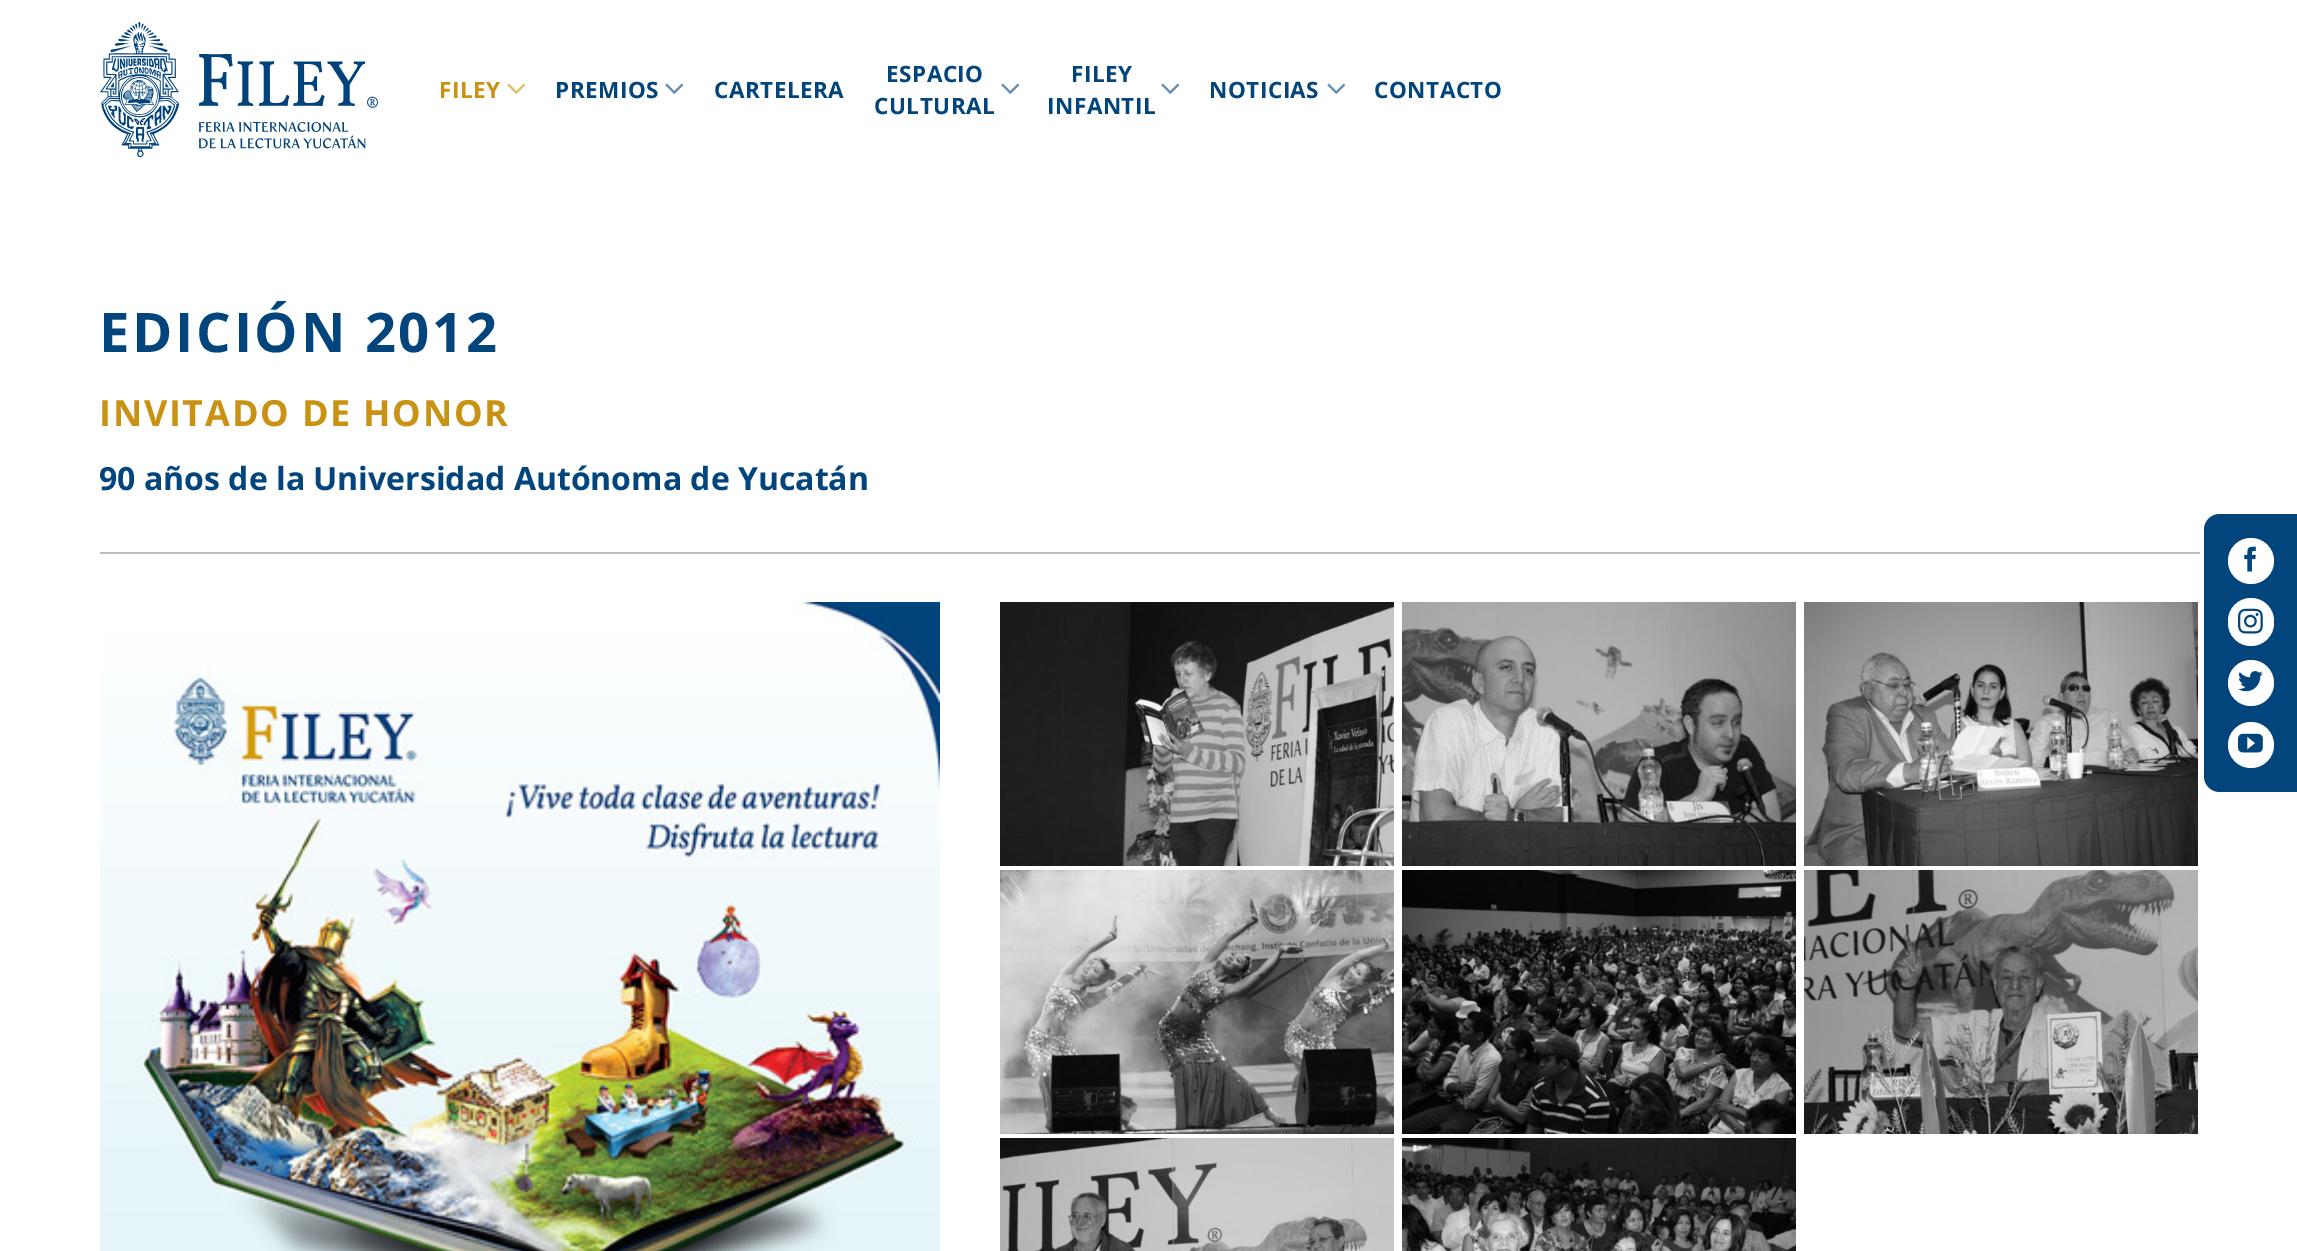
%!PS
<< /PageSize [2297 1251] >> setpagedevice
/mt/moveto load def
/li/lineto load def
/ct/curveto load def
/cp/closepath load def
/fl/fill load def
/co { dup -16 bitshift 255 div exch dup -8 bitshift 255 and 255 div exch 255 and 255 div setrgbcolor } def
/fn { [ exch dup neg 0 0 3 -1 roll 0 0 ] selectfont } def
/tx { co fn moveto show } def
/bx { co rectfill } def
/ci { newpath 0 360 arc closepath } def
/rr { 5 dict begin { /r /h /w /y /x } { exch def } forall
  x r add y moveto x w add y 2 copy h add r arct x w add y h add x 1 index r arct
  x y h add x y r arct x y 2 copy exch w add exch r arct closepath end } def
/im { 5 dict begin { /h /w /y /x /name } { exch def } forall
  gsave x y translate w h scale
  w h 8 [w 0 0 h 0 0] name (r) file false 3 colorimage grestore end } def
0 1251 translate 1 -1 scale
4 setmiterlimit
0 0 2297 1251 16#FFFFFF bx
(media/1.raw) 100 22 278 136 im
(media/2.raw) 507 83 19 11 im
(media/3.raw) 665 83 19 11 im
(media/3.raw) 1001 83 19 11 im
(media/3.raw) 1161 83 19 11 im
(media/3.raw) 1327 83 19 11 im
100 552 2100 2 16#BEBEBE bx
(media/4.raw) 100 602 840 649 im
(media/5.raw) 1000 602 394 264 im
(media/6.raw) 1402 602 394 264 im
(media/7.raw) 1804 602 394 264 im
(media/8.raw) 1000 870 394 264 im
(media/9.raw) 1402 870 394 264 im
(media/10.raw) 1804 870 394 264 im
(media/11.raw) 1000 1138 394 113 im
(media/12.raw) 1402 1138 394 113 im
16#01457C co
2220 514 mt 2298 514 li 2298 792 li 2220 792 li 2211 792 2204 785 2204 776 ct 2204 530 li 2204 521 2211 514 2220 514 ct cp fl
16#FFFFFF co
2251 561 23 ci fl
(media/13.raw) 2244 546 12 26 im
2228 598 46 48 23 rr fl
(media/14.raw) 2238 608 25 26 im
2251 683 23 ci fl
(media/15.raw) 2238 671 25 21 im
2251 745 23 ci fl
(media/16.raw) 2238 733 25 20 im
/OpenSans-Bold 22.5 fn
16#C99213 co
439 98 mt .5 0 (FILEY) ashow
16#01457C co
555 98 mt .5 0 (PREMIOS) ashow
714 98 mt .5 0 (CARTELERA) ashow
886 82 mt .5 0 (ESPACIO) ashow
874 114 mt .5 0 (CULTURAL) ashow
1071 82 mt .5 0 (FILEY) ashow
1047 114 mt .5 0 (INFANTIL) ashow
1209 98 mt .5 0 (NOTICIAS) ashow
1374 98 mt .5 0 (CONTACTO) ashow
/OpenSans-Bold 54.5 fn
99 352 mt 2.75 0 (EDICIÓN 2012) ashow
/OpenSans-Bold 36 fn
16#C99213 co
99 426 mt 1.75 0 (INVITADO DE HONOR) ashow
(90 años de la Universidad Autónoma de Yucatán) 99 490 /OpenSans-Bold 32 16#01457C tx
showpage
